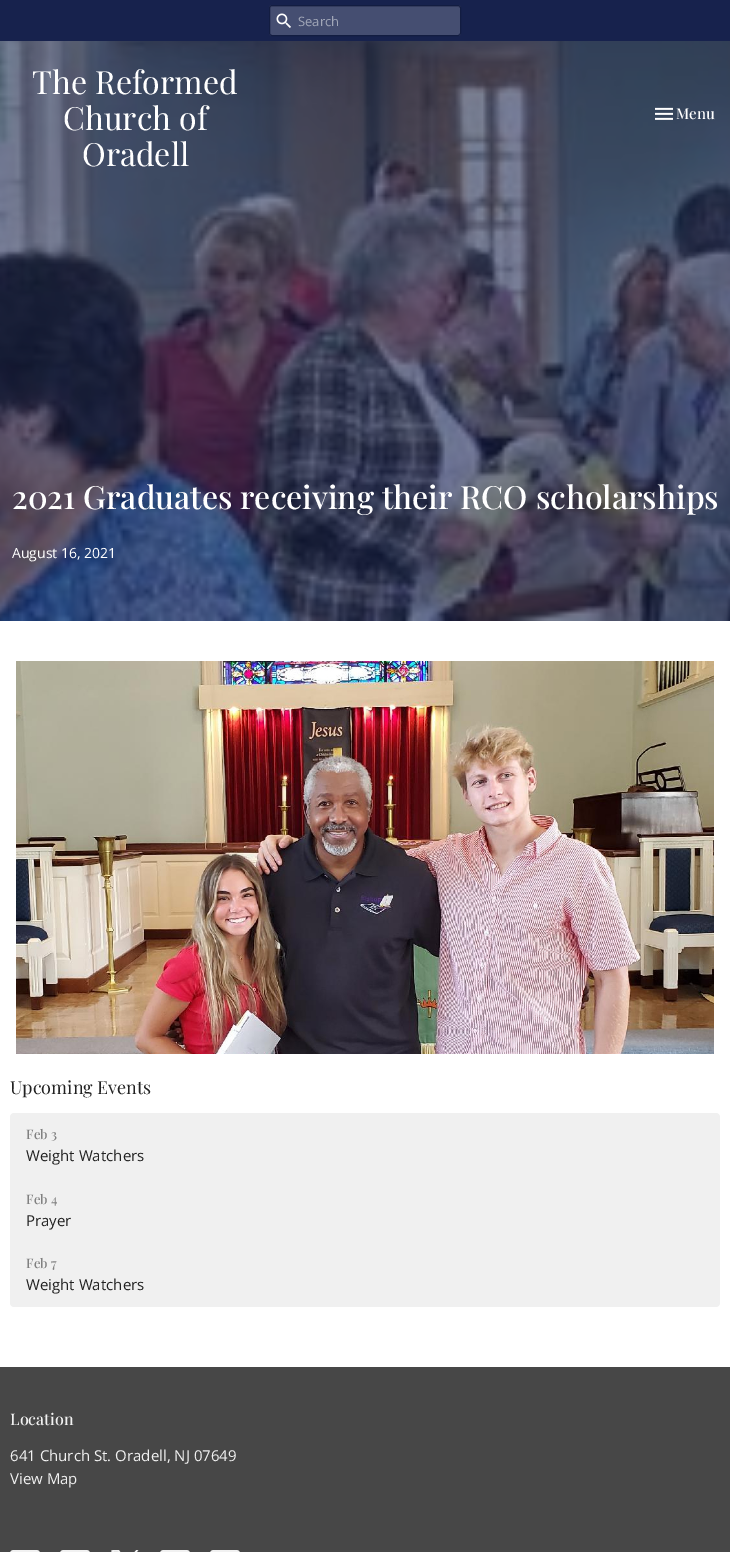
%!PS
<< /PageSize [730 1552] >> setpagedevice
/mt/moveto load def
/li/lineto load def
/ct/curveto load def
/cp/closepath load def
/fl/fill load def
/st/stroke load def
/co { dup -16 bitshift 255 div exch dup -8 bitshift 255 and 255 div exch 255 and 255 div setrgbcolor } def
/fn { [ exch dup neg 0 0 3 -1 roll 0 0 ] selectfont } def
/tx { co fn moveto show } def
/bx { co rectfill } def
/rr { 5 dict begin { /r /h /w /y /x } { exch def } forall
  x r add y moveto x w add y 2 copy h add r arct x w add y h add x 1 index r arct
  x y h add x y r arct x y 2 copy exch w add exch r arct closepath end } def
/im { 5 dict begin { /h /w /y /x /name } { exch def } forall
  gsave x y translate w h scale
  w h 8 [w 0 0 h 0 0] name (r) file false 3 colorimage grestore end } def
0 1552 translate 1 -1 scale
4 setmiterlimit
0 0 730 1552 16#FFFFFF bx
0 0 730 41 16#17224D bx
16#454E71 co
269 5 192 31 3 rr fl
16#404869 co
272 7 mt 458 7 li 460 8 li 460 9 li 460 8 li 460 7 459 6 458 6 ct 272 6 li 271 6 270 7 270 8 ct 270 9 li 270 8 271 7 272 7 ct cp fl
16#131D41 co
269.5 5.5 191 30 2.5 rr st
(media/1.raw) 276 13 15 15 im
(media/3.raw) 0 41 730 580 im
(media/2.raw) 655 107 18 13 im
(media/4.raw) 16 661 698 393 im
16#F0F0F0 co
14 1113 mt 716 1113 li 718 1113 720 1115 720 1117 ct 720 1179 li 10 1179 li 10 1117 li 10 1115 12 1113 14 1113 ct cp fl
10 1179 710 63 16#F0F0F0 bx
10 1242 mt 720 1242 li 720 1303 li 720 1305 718 1307 716 1307 ct 14 1307 li 12 1307 10 1305 10 1303 ct cp fl
0 1367 730 185 16#474747 bx
(media/5.raw) 10 1550 30 2 im
(media/5.raw) 60 1550 30 2 im
(media/6.raw) 111 1550 28 2 im
(media/5.raw) 160 1550 30 2 im
(media/5.raw) 210 1550 30 2 im
(Search) 298 26 /OpenSans-Regular 13 16#A2A7B8 tx
(The Reformed) 32 94 /PlayfairDisplay-Regular 32 16#FFFFFF tx
(Church of) 63 130 /PlayfairDisplay-Regular 32 16#FFFFFF tx
(Oradell) 82 166 /PlayfairDisplay-Regular 32 16#FFFFFF tx
(Menu) 676 119 /PlayfairDisplay-Medium 15 16#FFFFFF tx
(2021 Graduates receiving their RCO scholarships) 12 509 /PlayfairDisplay-Medium 32 16#FFFFFF tx
(August 16, 2021) 12 558 /OpenSans-Regular 14 16#FFFFFF tx
(Upcoming Events) 10 1094 /PlayfairDisplay-Regular 18 16#222222 tx
(Feb 3) 26 1139 /PlayfairDisplay-Medium 13 16#808080 tx
(Weight Watchers) 26 1161 /OpenSans-Regular 15 16#222222 tx
(Feb 4) 26 1204 /PlayfairDisplay-Medium 13 16#808080 tx
(Prayer) 26 1226 /OpenSans-Regular 15 16#222222 tx
(Feb 7) 26 1268 /PlayfairDisplay-Medium 13 16#808080 tx
(Weight Watchers) 26 1290 /OpenSans-Regular 15 16#222222 tx
(Location) 10 1425 /PlayfairDisplay-Medium 16 16#F1F1F1 tx
(641 Church St. Oradell, NJ 07649) 10 1461 /OpenSans-Regular 15 16#F1F1F1 tx
(View Map) 10 1484 /OpenSans-Regular 15 16#F1F1F1 tx
showpage
